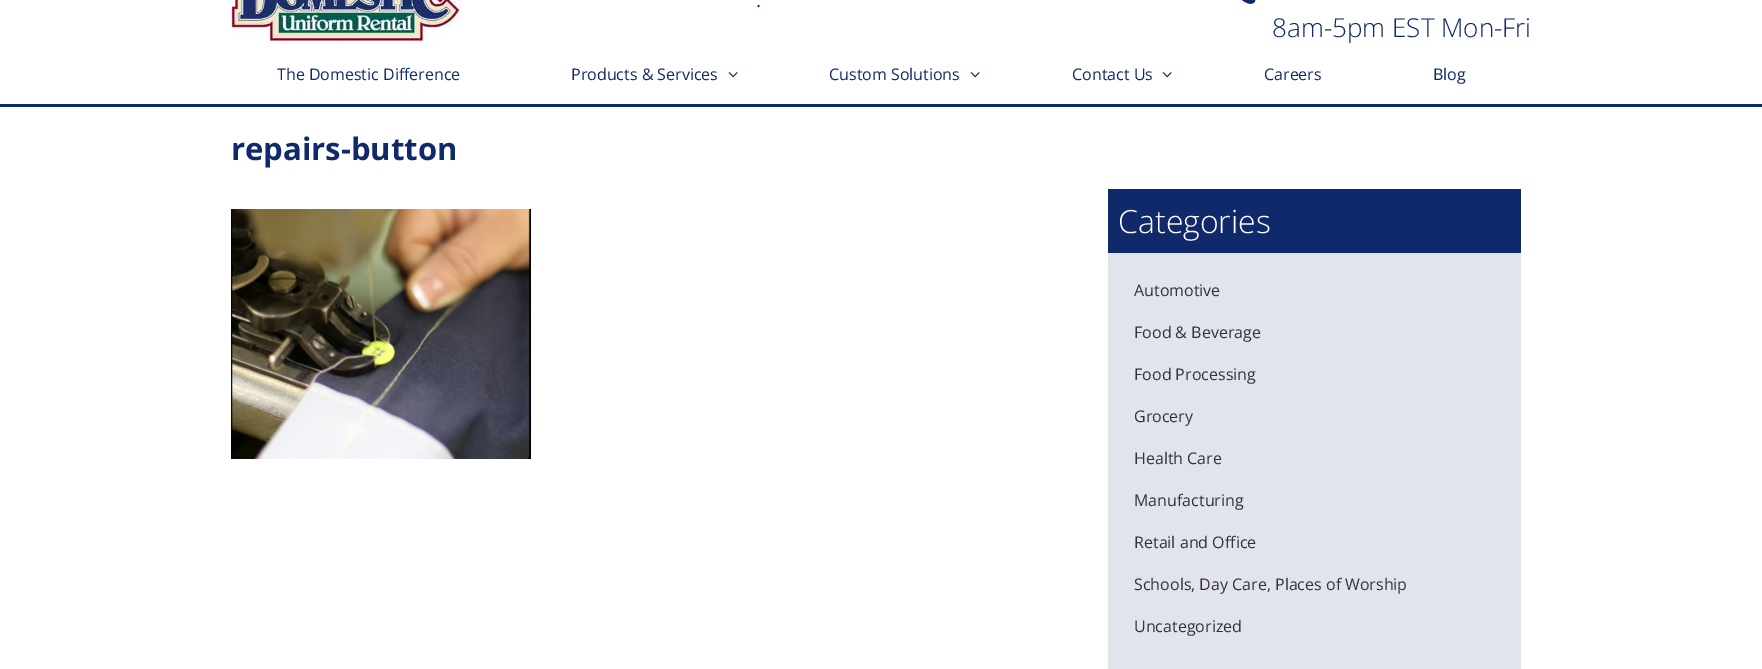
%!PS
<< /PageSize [1762 669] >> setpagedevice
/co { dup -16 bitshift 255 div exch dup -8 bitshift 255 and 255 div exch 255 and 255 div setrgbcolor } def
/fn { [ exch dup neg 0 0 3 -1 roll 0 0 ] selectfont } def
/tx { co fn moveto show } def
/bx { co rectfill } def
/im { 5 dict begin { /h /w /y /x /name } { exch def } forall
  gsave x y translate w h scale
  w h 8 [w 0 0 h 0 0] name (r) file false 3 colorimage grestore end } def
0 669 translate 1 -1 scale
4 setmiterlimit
0 0 1762 669 16#FFFFFF bx
(media/1.raw) 231 0 230 42 im
(media/2.raw) 1242 0 14 4 im
0 104 1762 3 16#10296A bx
(media/3.raw) 728 72 10 6 im
(media/3.raw) 970 72 10 6 im
(media/3.raw) 1162 72 10 6 im
(media/4.raw) 231 209 300 250 im
1108 253 413 416 16#E1E4EC bx
1108 189 413 64 16#10296A bx
(.) 757 7 /OpenSans-Italic 19 16#10296A tx
(8am-5pm EST Mon-Fri) 1272 37 /OpenSans-Light 26 16#10296A tx
(The Domestic Difference) 277 80 /OpenSans-Regular 16 16#10296A tx
(Products & Services) 571 80 /OpenSans-Regular 16 16#10296A tx
(Custom Solutions) 829 80 /OpenSans-Regular 16 16#10296A tx
(Contact Us) 1072 80 /OpenSans-Regular 16 16#10296A tx
(Careers) 1264 80 /OpenSans-Regular 16 16#10296A tx
(Blog) 1433 80 /OpenSans-Regular 16 16#10296A tx
(repairs-button) 231 160 /OpenSans-Bold 31 16#10296A tx
(Categories) 1118 233 /OpenSans-Light 32 16#FFFFFF tx
(Automotive) 1134 296 /OpenSans-Regular 16 16#333333 tx
(Food & Beverage) 1134 338 /OpenSans-Regular 16 16#333333 tx
(Food Processing) 1134 380 /OpenSans-Regular 16 16#333333 tx
(Grocery) 1134 422 /OpenSans-Regular 16 16#333333 tx
(Health Care) 1134 464 /OpenSans-Regular 16 16#333333 tx
(Manufacturing) 1134 506 /OpenSans-Regular 16 16#333333 tx
(Retail and Office) 1134 548 /OpenSans-Regular 16 16#333333 tx
(Schools, Day Care, Places of Worship) 1134 590 /OpenSans-Regular 16 16#333333 tx
(Uncategorized) 1134 632 /OpenSans-Regular 16 16#333333 tx
showpage
